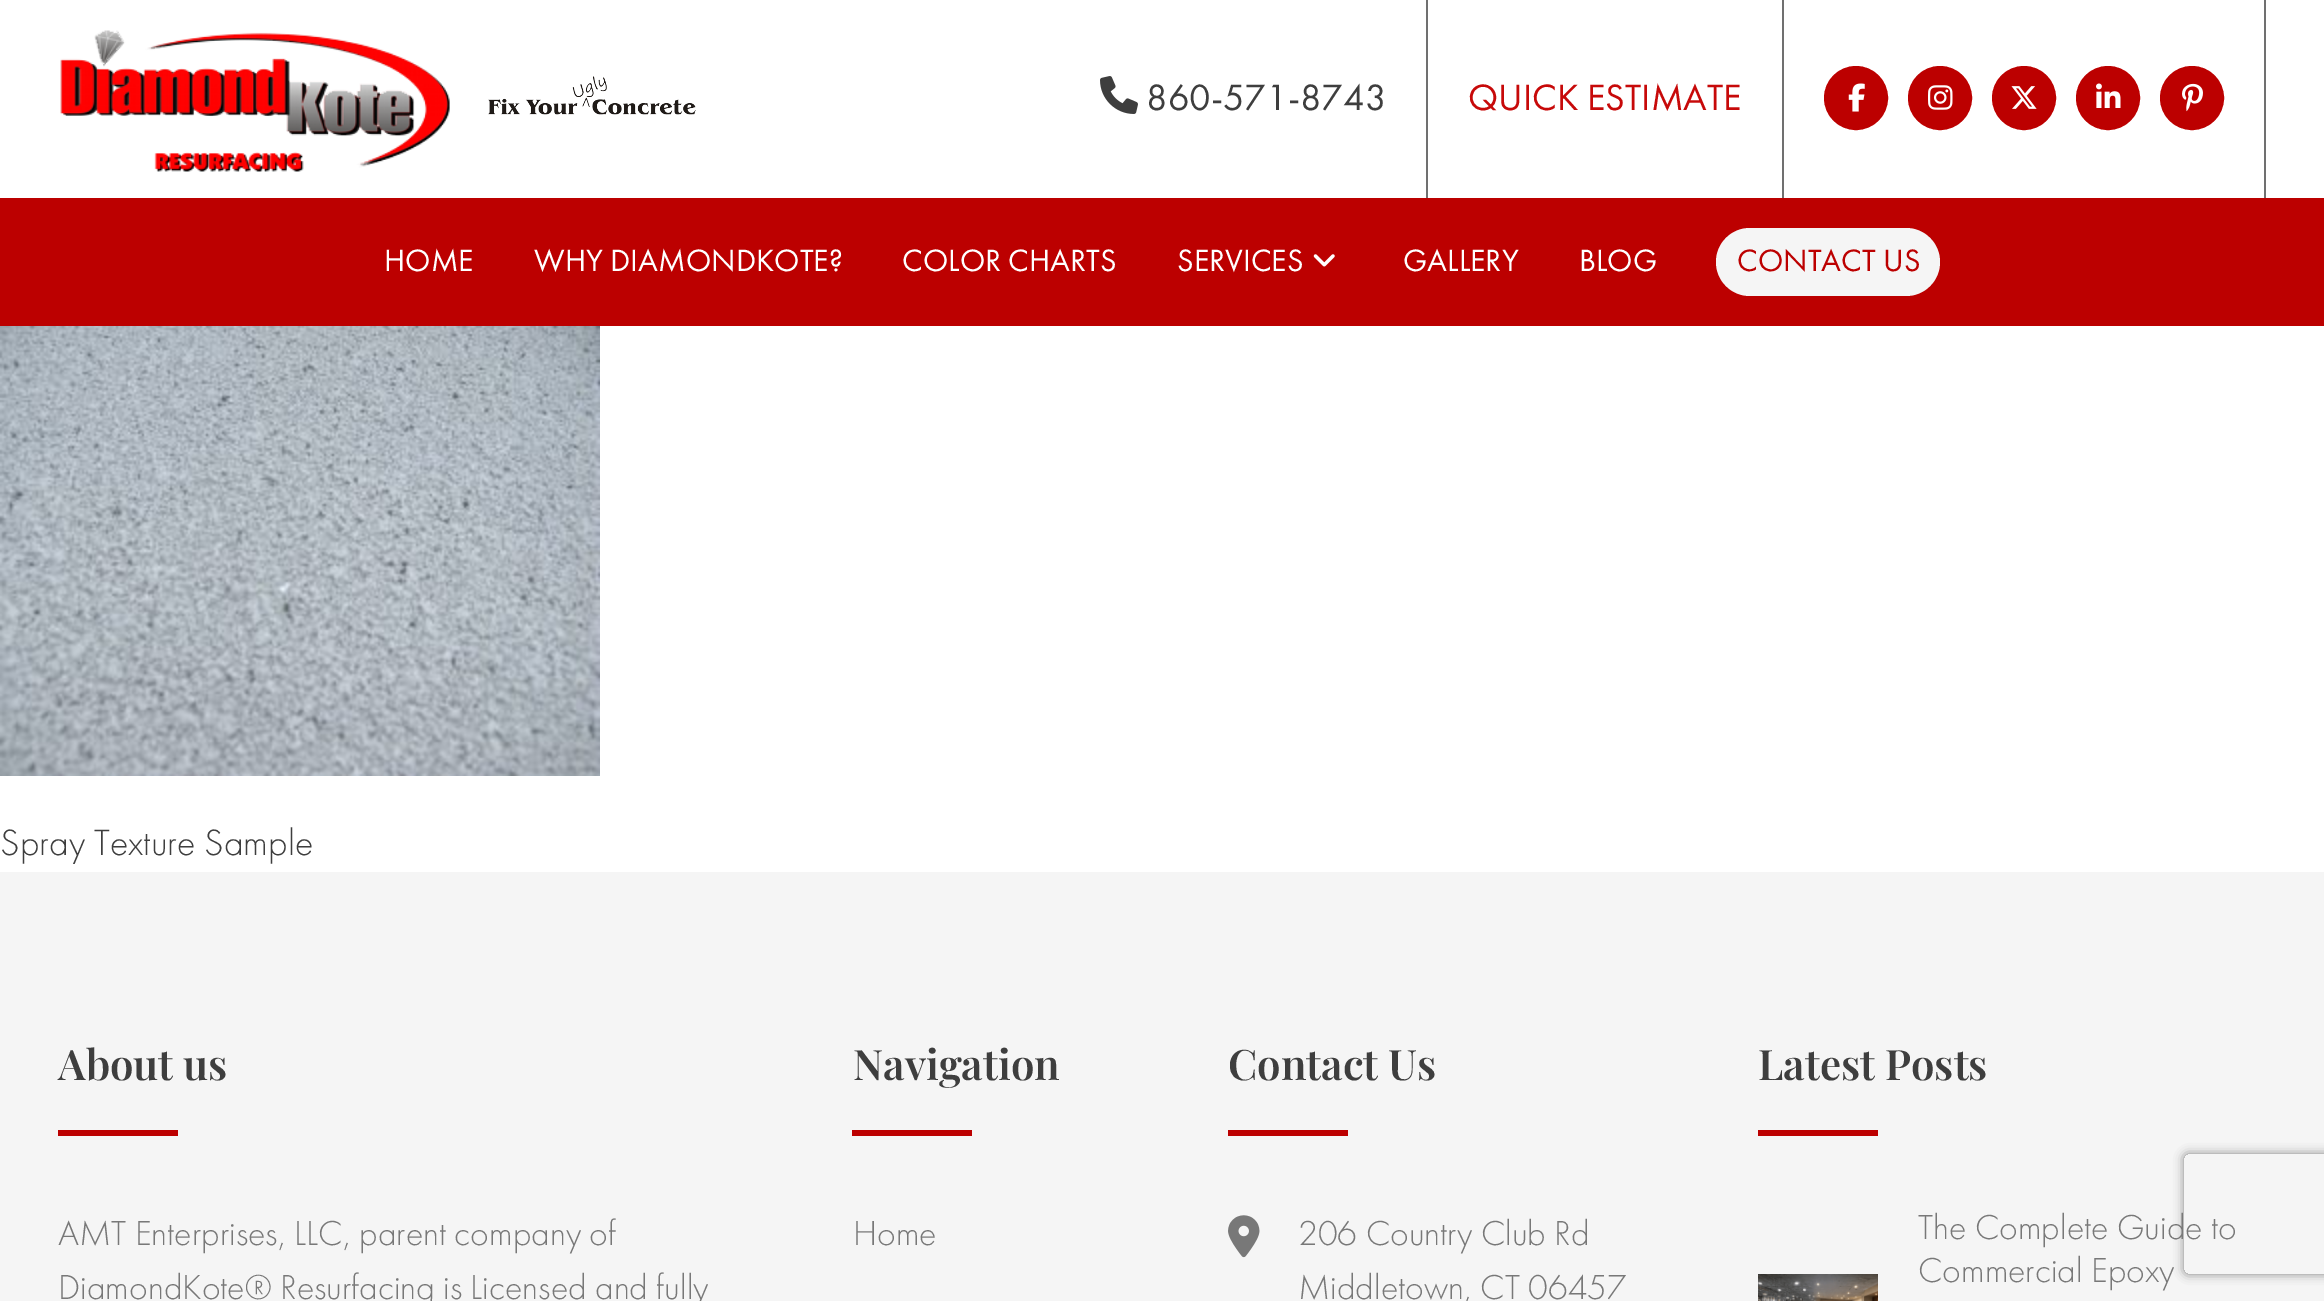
%!PS
<< /PageSize [2324 1301] /PageUsesTransparency true >> setpagedevice
/mt/moveto load def
/li/lineto load def
/ct/curveto load def
/cp/closepath load def
/fl/fill load def
/st/stroke load def
/gs/gsave load def
/gr/grestore load def
/lw/setlinewidth load def
/co { dup -16 bitshift 255 div exch dup -8 bitshift 255 and 255 div exch 255 and 255 div setrgbcolor } def
/fn { [ exch dup neg 0 0 3 -1 roll 0 0 ] selectfont } def
/tx { co fn moveto show } def
/bx { co rectfill } def
/al { dup .setfillconstantalpha .setstrokeconstantalpha } def
/ci { newpath 0 360 arc closepath } def
/rr { 5 dict begin { /r /h /w /y /x } { exch def } forall
  x r add y moveto x w add y 2 copy h add r arct x w add y h add x 1 index r arct
  x y h add x y r arct x y 2 copy exch w add exch r arct closepath end } def
/sh { 12 dict begin { /a /b /q /h /w /y /x } { exch def } forall gsave /was 0 def
  9 -2 -9 { dup b mul 4 div /e exch def 1 sub .425 mul 2.718 exch exp 1 add a .99 .min exch div /now exch def
    1 1 now sub 1 was sub div sub al /was now def
    w h .min e 2 mul add 0 gt { x e sub y e sub w e 2 mul add h e 2 mul add
      q e add b .6 mul add w h .min 2 div e add .min 0 .max rr fill } if } for grestore end } def
/im { 5 dict begin { /h /w /y /x /name } { exch def } forall
  gsave x y translate w h scale
  w h 8 [w 0 0 h 0 0] name (r) file false 3 colorimage grestore end } def
0 .pushpdf14devicefilter
0 1301 translate 1 -1 scale
4 setmiterlimit
0 0 2324 1301 16#FFFFFF bx
(media/1.raw) 60 30 390 142 im
(media/2.raw) 488 76 208 39 im
2264 0 2 198 16#707070 bx
1426 0 2 198 16#707070 bx
(media/3.raw) 1100 76 38 38 im
1782 0 2 198 16#707070 bx
16#BC0000 co
1856 98 31 ci gs fl gr
2 lw
st
(media/4.raw) 1848 83 17 29 im
1940 98 31 ci gs fl gr
st
(media/5.raw) 1928 85 25 25 im
2024 98 31 ci gs fl gr
st
(media/6.raw) 2011 86 26 23 im
2108 98 31 ci gs fl gr
st
(media/7.raw) 2096 83 25 25 im
2192 98 31 ci gs fl gr
st
(media/8.raw) 2182 83 21 29 im
0 198 2324 128 16#BC0000 bx
(media/9.raw) 1313 254 22 13 im
16#F5F5F5 co
1716 228 224 68 34 rr fl
(media/10.raw) 0 326 600 450 im
0 872 2324 429 16#F5F5F5 bx
58 1130 120 6 16#BC0000 bx
852 1130 120 6 16#BC0000 bx
1228 1130 120 6 16#BC0000 bx
(media/11.raw) 1228 1215 32 43 im
1758 1130 120 6 16#BC0000 bx
(media/12.raw) 1758 1274 120 27 im
gs
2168 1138 mt 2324 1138 li 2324 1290 li 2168 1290 li cp 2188 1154 mt 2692 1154 li 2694 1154 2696 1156 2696 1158 ct 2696 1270 li 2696 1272 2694 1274 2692 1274 ct 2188 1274 li 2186 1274 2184 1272 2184 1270 ct 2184 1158 li 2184 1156 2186 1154 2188 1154 ct cp eoclip newpath
16#808080 co
2184 1154 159 120 4 5 1 sh
gr
(860-571-8743) 1146 110 /FuturaPT-Regular 38 16#3E3E3E tx
(QUICK ESTIMATE) 1468 110 /FuturaPT-Regular 38 16#C70909 tx
(HOME) 384 271 /FuturaPT-Regular 32 16#FFFFFF tx
(WHY DIAMONDKOTE?) 534 271 /FuturaPT-Regular 32 16#FFFFFF tx
(COLOR CHARTS) 902 271 /FuturaPT-Regular 32 16#FFFFFF tx
(SERVICES) 1177 271 /FuturaPT-Regular 32 16#FFFFFF tx
(GALLERY) 1403 271 /FuturaPT-Regular 32 16#FFFFFF tx
(BLOG) 1579 271 /FuturaPT-Regular 32 16#FFFFFF tx
(CONTACT US) 1737 271 /FuturaPT-Regular 32 16#BC0000 tx
(Spray Texture Sample) 0 855 /FuturaPT-Light 38 16#3E3E3E tx
(About us) 58 1080 /PlayfairDisplay-SemiBold 42 16#3E3E3E tx
(AMT Enterprises, LLC, parent company of) 58 1245 /FuturaPT-Light 36 16#787878 tx
(DiamondKote® Resurfacing is Licensed and fully) 58 1299 /FuturaPT-Light 36 16#787878 tx
(Navigation) 853 1080 /PlayfairDisplay-SemiBold 42 16#3E3E3E tx
(Home) 853 1245 /FuturaPT-Light 36 16#787878 tx
(Contact Us) 1228 1080 /PlayfairDisplay-SemiBold 42 16#3E3E3E tx
(206 Country Club Rd) 1298 1245 /FuturaPT-Light 36 16#787878 tx
(Middletown, CT 06457) 1298 1299 /FuturaPT-Light 36 16#787878 tx
(Latest Posts) 1758 1080 /PlayfairDisplay-SemiBold 42 16#3E3E3E tx
(The Complete Guide to) 1918 1239 /FuturaPT-Light 36 16#787878 tx
(Commercial Epoxy) 1918 1282 /FuturaPT-Light 36 16#787878 tx
.poppdf14devicefilter showpage
